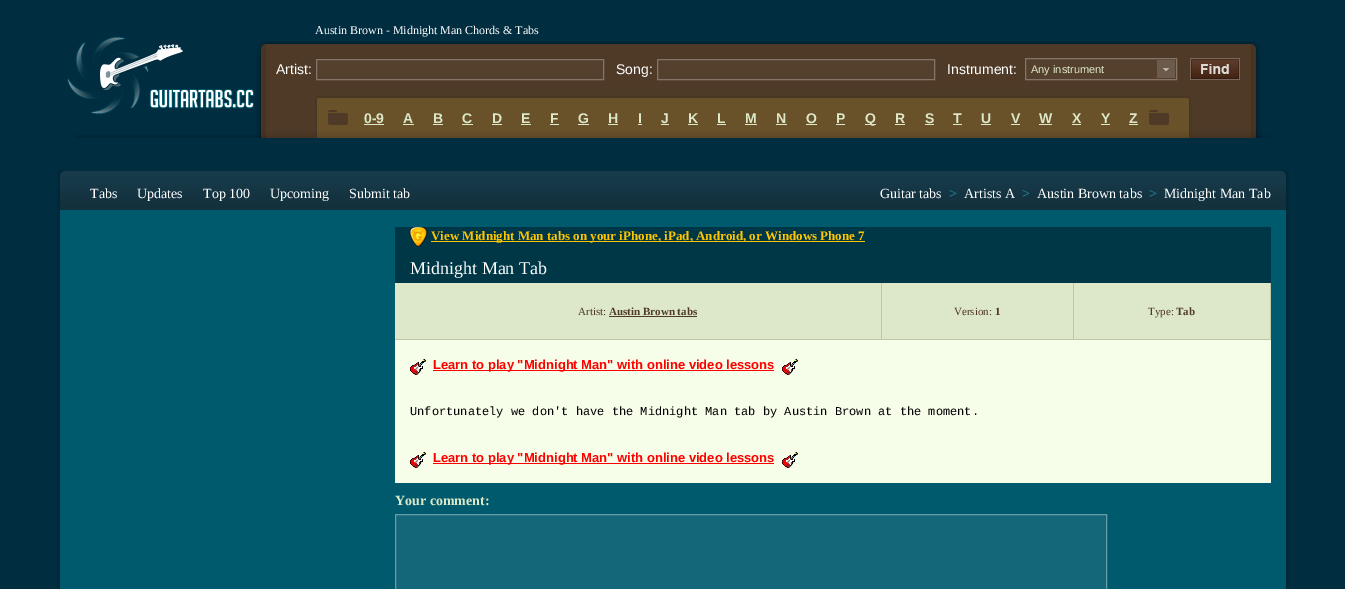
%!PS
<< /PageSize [1345 589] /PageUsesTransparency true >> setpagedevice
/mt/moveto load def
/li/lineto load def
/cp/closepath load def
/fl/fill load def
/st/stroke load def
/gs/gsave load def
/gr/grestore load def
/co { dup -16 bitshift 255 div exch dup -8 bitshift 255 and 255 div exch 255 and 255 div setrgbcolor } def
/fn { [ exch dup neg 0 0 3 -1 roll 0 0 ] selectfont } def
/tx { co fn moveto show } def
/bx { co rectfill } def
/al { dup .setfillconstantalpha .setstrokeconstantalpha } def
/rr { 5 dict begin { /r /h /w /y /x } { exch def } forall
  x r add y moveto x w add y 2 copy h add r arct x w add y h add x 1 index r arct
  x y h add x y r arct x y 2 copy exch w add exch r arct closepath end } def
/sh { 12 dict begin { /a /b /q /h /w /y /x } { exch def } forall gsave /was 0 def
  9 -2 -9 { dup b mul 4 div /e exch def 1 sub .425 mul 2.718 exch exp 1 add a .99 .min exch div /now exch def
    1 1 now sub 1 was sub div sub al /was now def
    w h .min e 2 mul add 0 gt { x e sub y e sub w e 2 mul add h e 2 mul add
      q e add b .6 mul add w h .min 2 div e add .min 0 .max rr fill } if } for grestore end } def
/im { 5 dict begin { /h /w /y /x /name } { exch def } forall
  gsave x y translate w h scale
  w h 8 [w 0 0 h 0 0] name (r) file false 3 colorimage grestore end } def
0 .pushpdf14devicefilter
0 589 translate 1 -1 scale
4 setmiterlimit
0 0 1345 589 16#002D3F bx
75 135 180 3 16#002838 bx
(media/1.raw) 67 36 187 79 im
(media/2.raw) 266 41 985 97 im
(media/3.raw) 255 41 11 97 im
16#55402E co
316.5 59.5 mt 603.5 59.5 li 603.5 79.5 li 316.5 79.5 li cp gs fl gr
16#847568 co
st
16#55402E co
657.5 59.5 mt 934.5 59.5 li 934.5 79.5 li 657.5 79.5 li cp gs fl gr
16#847568 co
st
16#55402E co
1025.5 58.5 mt 1176.5 58.5 li 1176.5 79.5 li 1025.5 79.5 li cp gs fl gr
16#847568 co
st
(media/4.raw) 1157 60 18 18 im
(media/5.raw) 1190 58 50 22 im
gs
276 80 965 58 rectclip
16#3F2E1F co
317 98 872 40 2 2.5 1 sh
gr
(media/6.raw) 317 98 872 40 im
(media/7.raw) 328 110 20 15 im
364 124 20 1 16#DDE8C8 bx
403 124 11 1 16#DDE8C8 bx
433 124 10 1 16#DDE8C8 bx
462 124 11 1 16#DDE8C8 bx
492 124 10 1 16#DDE8C8 bx
521 124 10 1 16#DDE8C8 bx
550 124 9 1 16#DDE8C8 bx
578 124 11 1 16#DDE8C8 bx
608 124 10 1 16#DDE8C8 bx
638 124 4 1 16#DDE8C8 bx
661 124 8 1 16#DDE8C8 bx
688 124 10 1 16#DDE8C8 bx
717 124 9 1 16#DDE8C8 bx
745 124 12 1 16#DDE8C8 bx
776 124 11 1 16#DDE8C8 bx
806 124 11 1 16#DDE8C8 bx
836 124 9 1 16#DDE8C8 bx
865 124 11 1 16#DDE8C8 bx
895 124 10 1 16#DDE8C8 bx
925 124 9 1 16#DDE8C8 bx
953 124 9 1 16#DDE8C8 bx
981 124 10 1 16#DDE8C8 bx
1011 124 9 1 16#DDE8C8 bx
1039 124 13 1 16#DDE8C8 bx
1072 124 9 1 16#DDE8C8 bx
1101 124 9 1 16#DDE8C8 bx
1129 124 9 1 16#DDE8C8 bx
(media/7.raw) 1149 110 20 15 im
(media/8.raw) 1251 41 11 97 im
1262 135 9 3 16#002939 bx
(media/9.raw) 57 171 8 46 im
(media/10.raw) 60 169 5 41 im
65 210 1216 379 16#005A6D bx
(media/11.raw) 65 171 1216 39 im
(media/12.raw) 1281 171 8 46 im
(media/13.raw) 1281 169 5 41 im
(media/14.raw) 57 217 8 372 im
395 227 876 56 16#003746 bx
(media/15.raw) 409 227 19 20 im
431 241 434 1 16#FFC600 bx
395 283 875 56 16#DDE8C8 bx
881 283 1 57 16#C1C5A8 bx
395 339 487 1 16#C1C5A8 bx
609 316 88 1 16#4F3A27 bx
1073 283 1 57 16#C1C5A8 bx
882 339 192 1 16#C1C5A8 bx
1270 283 1 57 16#C1C5A8 bx
1074 339 197 1 16#C1C5A8 bx
395 340 876 143 16#F6FDE9 bx
(media/16.raw) 410 359 16 16 im
433 370 341 1 16#FF0000 bx
(media/16.raw) 782 359 16 16 im
(media/16.raw) 410 452 16 16 im
433 463 341 1 16#FF0000 bx
(media/16.raw) 782 452 16 16 im
16#146778 co
395.5 514.5 mt 1106.5 514.5 li 1106.5 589.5 li 395.5 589.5 li cp gs fl gr
16#669CA7 co
st
(media/17.raw) 1281 217 8 372 im
(Austin Brown - Midnight Man Chords & Tabs) 315 34 /LiberationSerif-Regular 12 16#FFFFFF tx
(Artist:) 276 74 /LiberationSans-Regular 14 16#FFFFFF tx
(Song:) 616 74 /LiberationSans-Regular 14 16#FFFFFF tx
(Instrument:) 947 74 /LiberationSans-Regular 14 16#FFFFFF tx
(Any instrument) 1031 73 /LiberationSans-Regular 11 16#DDE8C8 tx
(0-9) 364 123 /LiberationSans-Bold 14 16#DDE8C8 tx
(A) 403 123 /LiberationSans-Bold 14 16#DDE8C8 tx
(B) 433 123 /LiberationSans-Bold 14 16#DDE8C8 tx
(C) 462 123 /LiberationSans-Bold 14 16#DDE8C8 tx
(D) 492 123 /LiberationSans-Bold 14 16#DDE8C8 tx
(E) 521 123 /LiberationSans-Bold 14 16#DDE8C8 tx
(F) 550 123 /LiberationSans-Bold 14 16#DDE8C8 tx
(G) 578 123 /LiberationSans-Bold 14 16#DDE8C8 tx
(H) 608 123 /LiberationSans-Bold 14 16#DDE8C8 tx
(I) 638 123 /LiberationSans-Bold 14 16#DDE8C8 tx
(J) 661 123 /LiberationSans-Bold 14 16#DDE8C8 tx
(K) 688 123 /LiberationSans-Bold 14 16#DDE8C8 tx
(L) 717 123 /LiberationSans-Bold 14 16#DDE8C8 tx
(M) 745 123 /LiberationSans-Bold 14 16#DDE8C8 tx
(N) 776 123 /LiberationSans-Bold 14 16#DDE8C8 tx
(O) 806 123 /LiberationSans-Bold 14 16#DDE8C8 tx
(P) 836 123 /LiberationSans-Bold 14 16#DDE8C8 tx
(Q) 865 123 /LiberationSans-Bold 14 16#DDE8C8 tx
(R) 895 123 /LiberationSans-Bold 14 16#DDE8C8 tx
(S) 925 123 /LiberationSans-Bold 14 16#DDE8C8 tx
(T) 953 123 /LiberationSans-Bold 14 16#DDE8C8 tx
(U) 981 123 /LiberationSans-Bold 14 16#DDE8C8 tx
(V) 1011 123 /LiberationSans-Bold 14 16#DDE8C8 tx
(W) 1039 123 /LiberationSans-Bold 14 16#DDE8C8 tx
(X) 1072 123 /LiberationSans-Bold 14 16#DDE8C8 tx
(Y) 1101 123 /LiberationSans-Bold 14 16#DDE8C8 tx
(Z) 1129 123 /LiberationSans-Bold 14 16#DDE8C8 tx
(Tabs) 90 198 /LiberationSerif-Regular 14 16#FFFFFF tx
(Updates) 137 198 /LiberationSerif-Regular 14 16#FFFFFF tx
(Top 100) 203 198 /LiberationSerif-Regular 14 16#FFFFFF tx
(Upcoming) 270 198 /LiberationSerif-Regular 14 16#FFFFFF tx
(Submit tab) 349 198 /LiberationSerif-Regular 14 16#FFFFFF tx
(Guitar tabs) 880 198 /LiberationSerif-Regular 14 16#FFFFFF tx
(>) 949 198 /LiberationSerif-Bold 14 16#1E7C90 tx
(Artists A) 964 198 /LiberationSerif-Regular 14 16#FFFFFF tx
(>) 1022 198 /LiberationSerif-Bold 14 16#1E7C90 tx
(Austin Brown tabs) 1037 198 /LiberationSerif-Regular 14 16#FFFFFF tx
(>) 1149 198 /LiberationSerif-Bold 14 16#1E7C90 tx
(Midnight Man Tab) 1164 198 /LiberationSerif-Regular 14 16#FFFFFF tx
(View Midnight Man tabs on your iPhone, iPad, Android, or Windows Phone 7) 431 240 /LiberationSerif-Bold 13 16#FFC600 tx
(Midnight Man Tab) 410 274 /LiberationSerif-Regular 18 16#FFFFFF tx
(Artist:) 578 315 /LiberationSerif-Regular 11 16#4F3A27 tx
(Austin Brown tabs) 609 315 /LiberationSerif-Bold 11 16#4F3A27 tx
(Version:) 954 315 /LiberationSerif-Regular 11 16#4F3A27 tx
(1) 995 315 /LiberationSerif-Bold 11 16#4F3A27 tx
(Type:) 1148 315 /LiberationSerif-Regular 11 16#4F3A27 tx
(Tab) 1176 315 /LiberationSerif-Bold 11 16#4F3A27 tx
(Learn to play "Midnight Man" with online video lessons) 433 369 /LiberationSans-Bold 13 16#FF0000 tx
(Unfortunately we don't have the Midnight Man tab by Austin Brown at the moment.) 410 415 /LiberationMono-Regular 12 16#000000 tx
(Learn to play "Midnight Man" with online video lessons) 433 462 /LiberationSans-Bold 13 16#FF0000 tx
(Your comment:) 395 505 /LiberationSerif-Bold 14 16#DDE8C8 tx
.poppdf14devicefilter showpage
